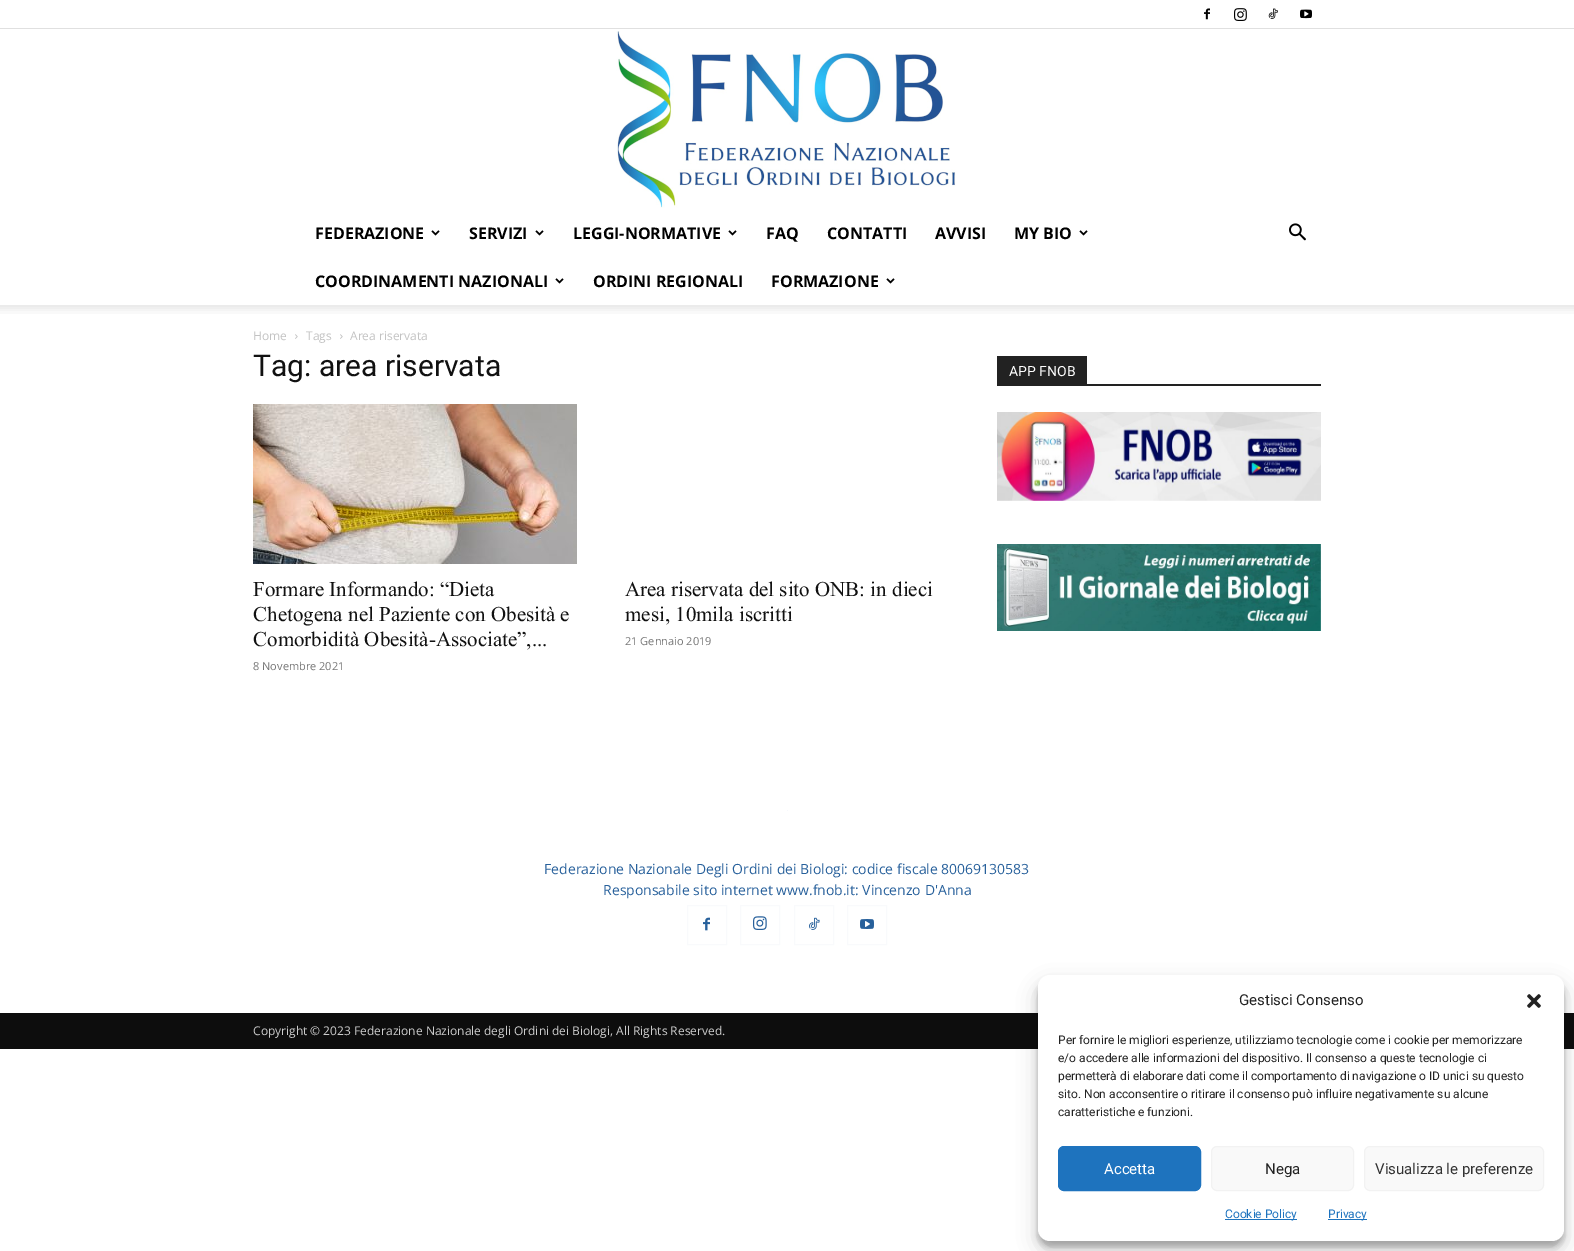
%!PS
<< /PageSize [1574 1251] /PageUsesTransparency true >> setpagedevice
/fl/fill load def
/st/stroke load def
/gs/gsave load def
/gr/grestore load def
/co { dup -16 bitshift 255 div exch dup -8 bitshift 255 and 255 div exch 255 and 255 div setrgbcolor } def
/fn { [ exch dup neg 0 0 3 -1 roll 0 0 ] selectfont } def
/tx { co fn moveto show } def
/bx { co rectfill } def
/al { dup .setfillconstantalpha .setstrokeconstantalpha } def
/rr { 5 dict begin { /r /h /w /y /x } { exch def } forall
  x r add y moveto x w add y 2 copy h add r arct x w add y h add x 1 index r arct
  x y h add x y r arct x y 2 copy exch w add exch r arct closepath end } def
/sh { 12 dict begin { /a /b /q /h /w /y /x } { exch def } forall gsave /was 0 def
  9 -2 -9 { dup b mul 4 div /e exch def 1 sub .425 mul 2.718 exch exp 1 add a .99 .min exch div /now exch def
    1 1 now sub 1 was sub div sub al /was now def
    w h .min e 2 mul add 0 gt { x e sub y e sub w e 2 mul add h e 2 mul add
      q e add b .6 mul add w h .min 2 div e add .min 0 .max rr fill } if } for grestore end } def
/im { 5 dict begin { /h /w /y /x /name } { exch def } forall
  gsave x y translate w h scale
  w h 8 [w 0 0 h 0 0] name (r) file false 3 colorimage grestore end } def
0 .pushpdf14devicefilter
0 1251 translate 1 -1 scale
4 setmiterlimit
0 0 1574 1251 16#FFFFFF bx
0 28 1574 1 16#E0E0E0 bx
(media/1.raw) 1204 8 6 12 im
(media/2.raw) 1234 8 13 13 im
(media/3.raw) 1268 8 10 11 im
(media/4.raw) 1300 9 12 10 im
(media/5.raw) 616 31 340 177 im
(media/6.raw) 431 230 9 6 im
(media/6.raw) 535 230 9 6 im
(media/6.raw) 728 230 9 6 im
(media/6.raw) 1079 230 9 6 im
(media/6.raw) 555 278 9 6 im
(media/6.raw) 886 278 9 6 im
(media/7.raw) 1289 223 17 18 im
(media/8.raw) 0 305 1574 9 im
(media/9.raw) 295 334 3 5 im
(media/9.raw) 340 334 3 5 im
(media/10.raw) 253 404 324 160 im
997 384 324 2 16#222222 bx
997 356 90 28 16#222222 bx
(media/11.raw) 997 412 324 89 im
(media/12.raw) 997 544 324 87 im
787 810 1 1 16#F6F8FC bx
(media/13.raw) 703 917 7 14 im
16#F9FAFC co
687.5 905.5 39 39 rectstroke
(media/14.raw) 753 916 14 14 im
740.5 905.5 39 39 rectstroke
(media/15.raw) 809 917 11 13 im
794.5 905.5 39 39 rectstroke
(media/16.raw) 860 919 14 10 im
847.5 905.5 39 39 rectstroke
0 1013 1574 36 16#0D0D0D bx
16#000000 co
1038 981 526 266 12 3 .23 sh
1038 985 526 266 12 10 .19 sh
16#FFFFFF co
1038 975 526 266 12 rr fl
(media/17.raw) 1527 994 14 14 im
16#1E73BE co
1058.5 1146.5 142 44 5.5 rr gs fl gr
st
16#F9F9F9 co
1211.5 1146.5 142 44 5.5 rr gs fl gr
16#F2F2F2 co
st
16#F9F9F9 co
1364.5 1146.5 179 44 5.5 rr gs fl gr
16#F2F2F2 co
st
1225 1219 72 1 16#1E73BE bx
1328 1219 39 1 16#1E73BE bx
(FEDERAZIONE) 315 239 /OpenSans-Bold 16 16#000000 tx
(SERVIZI) 469 239 /OpenSans-Bold 16 16#000000 tx
(LEGGI-NORMATIVE) 573 239 /OpenSans-Bold 16 16#000000 tx
(FAQ) 766 239 /OpenSans-Bold 16 16#000000 tx
(CONTATTI) 827 239 /OpenSans-Bold 16 16#000000 tx
(AVVISI) 935 239 /OpenSans-Bold 16 16#000000 tx
(MY BIO) 1014 239 /OpenSans-Bold 16 16#000000 tx
(COORDINAMENTI NAZIONALI) 315 287 /OpenSans-Bold 16 16#000000 tx
(ORDINI REGIONALI) 593 287 /OpenSans-Bold 16 16#000000 tx
(FORMAZIONE) 771 287 /OpenSans-Bold 16 16#000000 tx
(Home) 253 340 /OpenSans-Regular 12 16#C3C3C3 tx
(Tags) 306 340 /OpenSans-Regular 12 16#C3C3C3 tx
(Area riservata) 350 340 /OpenSans-Regular 12 16#C3C3C3 tx
(Tag: area riservata) 253 376 /Roboto-Regular 30 16#111111 tx
(Formare Informando: “Dieta) 253 596 /TimesNewRoman-Regular 21 16#111111 tx
(Chetogena nel Paziente con Obesità e) 253 621 /TimesNewRoman-Regular 21 16#111111 tx
(Comorbidità Obesità-Associate”,...) 253 646 /TimesNewRoman-Regular 21 16#111111 tx
(8 Novembre 2021) 253 670 /OpenSans-Regular 11 16#767676 tx
(Area riservata del sito ONB: in dieci) 625 596 /TimesNewRoman-Regular 21 16#111111 tx
(mesi, 10mila iscritti) 625 621 /TimesNewRoman-Regular 21 16#111111 tx
(21 Gennaio 2019) 625 645 /OpenSans-Regular 11 16#767676 tx
(APP FNOB) 1009 376 /Roboto-Regular 14 16#FFFFFF tx
(Federazione Nazionale Degli Ordini dei Biologi: codice fiscale 80069130583) 544 874 /OpenSans-Regular 14 16#27609B tx
(Responsabile sito internet www.fnob.it: Vincenzo D'Anna) 603 895 /OpenSans-Regular 14 16#27609B tx
(Copyright © 2023 Federazione Nazionale degli Ordini dei Biologi, All Rights Reserved.) 253 1035 /OpenSans-Regular 12 16#CCCCCC tx
(Gestisci Consenso) 1239 1005 /Roboto-Regular 15 16#222222 tx
(Per fornire le migliori esperienze, utilizziamo tecnologie come i cookie per memorizzare) 1058 1044 /Roboto-Regular 12 16#222222 tx
(e/o accedere alle informazioni del dispositivo. Il consenso a queste tecnologie ci) 1058 1062 /Roboto-Regular 12 16#222222 tx
(permetterà di elaborare dati come il comportamento di navigazione o ID unici su questo) 1058 1080 /Roboto-Regular 12 16#222222 tx
(sito. Non acconsentire o ritirare il consenso può influire negativamente su alcune) 1058 1098 /Roboto-Regular 12 16#222222 tx
(caratteristiche e funzioni.) 1058 1116 /Roboto-Regular 12 16#222222 tx
(Accetta) 1104 1174 /Roboto-Regular 15 16#FFFFFF tx
(Nega) 1265 1174 /Roboto-Regular 15 16#222222 tx
(Visualizza le preferenze) 1375 1174 /Roboto-Regular 15 16#333333 tx
(Cookie Policy) 1225 1218 /Roboto-Regular 12 16#1E73BE tx
(Privacy) 1328 1218 /Roboto-Regular 12 16#1E73BE tx
.poppdf14devicefilter showpage
